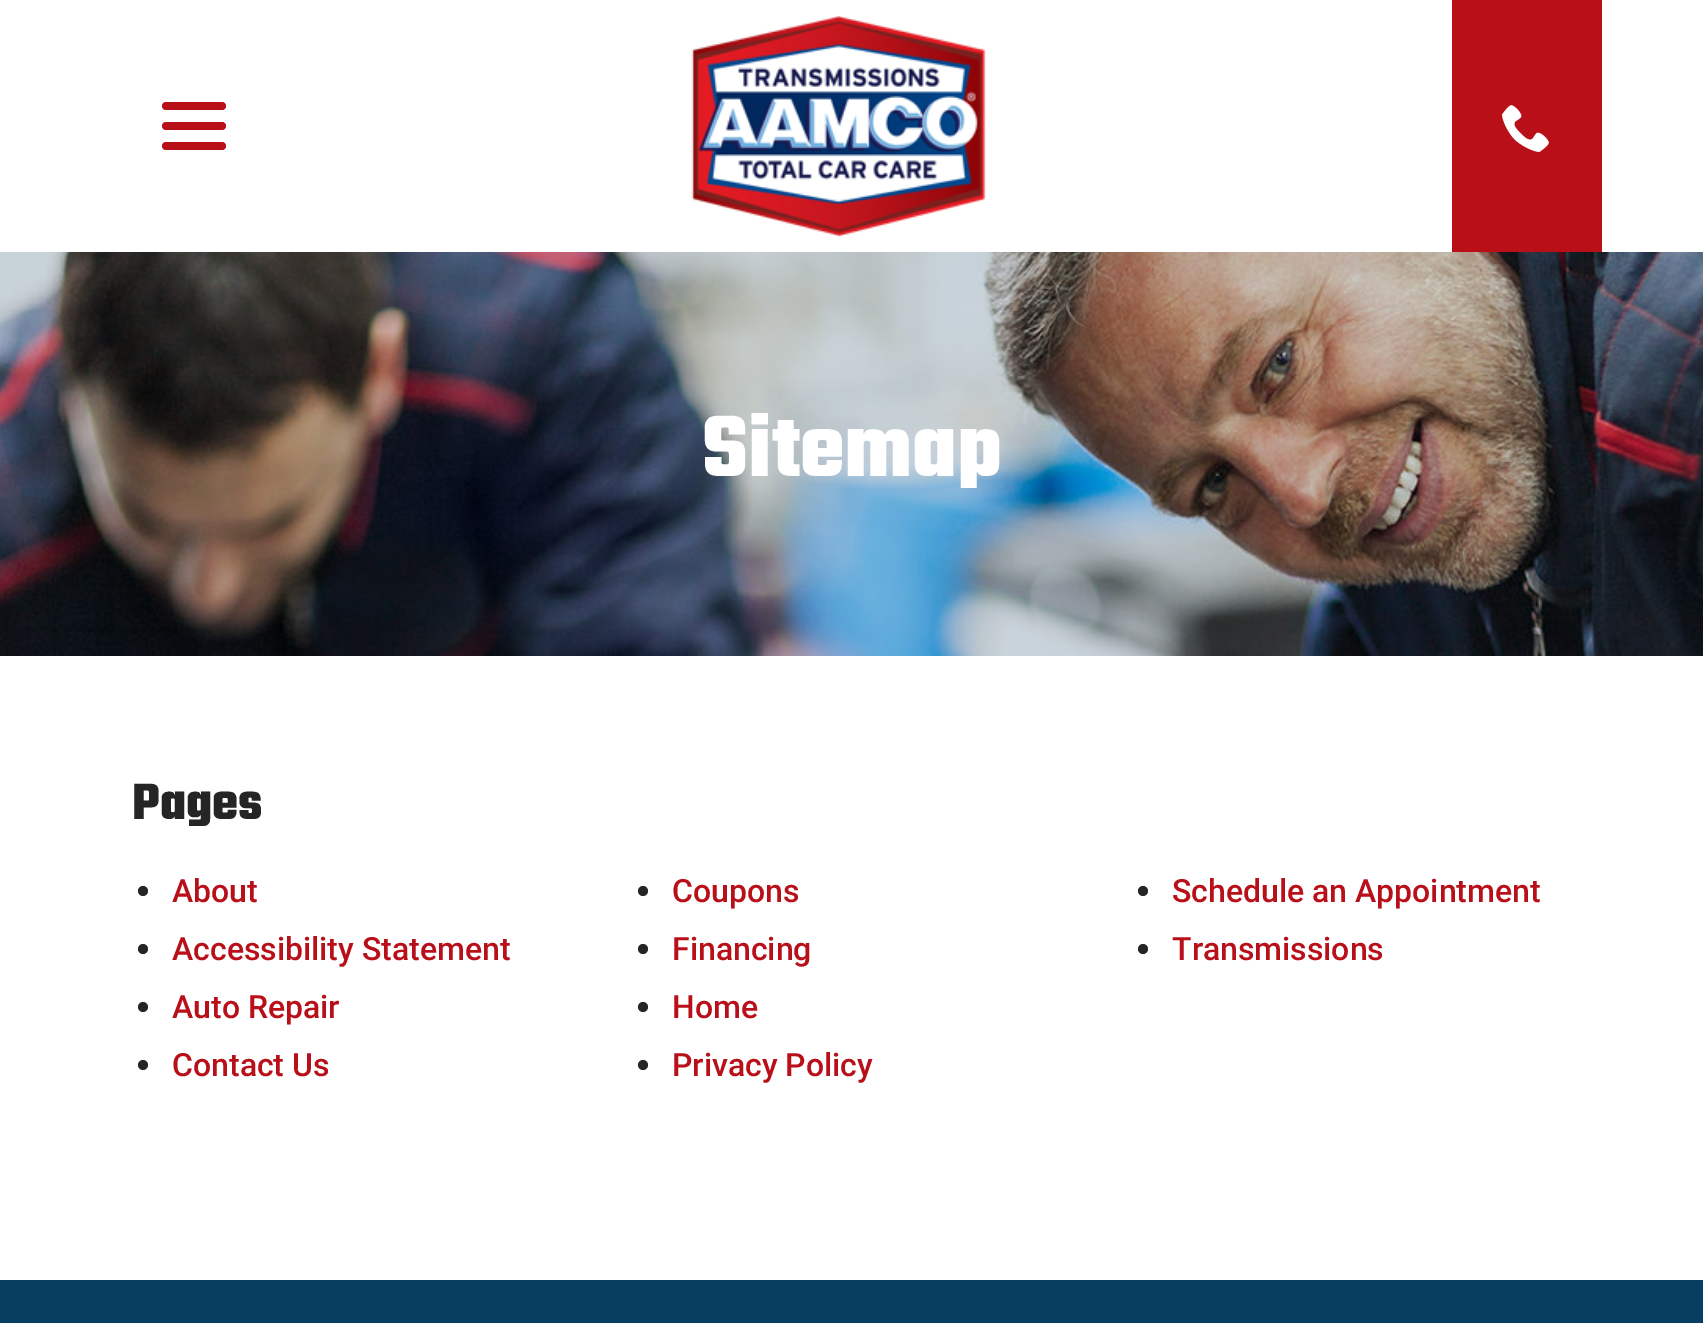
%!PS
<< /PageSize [1703 1323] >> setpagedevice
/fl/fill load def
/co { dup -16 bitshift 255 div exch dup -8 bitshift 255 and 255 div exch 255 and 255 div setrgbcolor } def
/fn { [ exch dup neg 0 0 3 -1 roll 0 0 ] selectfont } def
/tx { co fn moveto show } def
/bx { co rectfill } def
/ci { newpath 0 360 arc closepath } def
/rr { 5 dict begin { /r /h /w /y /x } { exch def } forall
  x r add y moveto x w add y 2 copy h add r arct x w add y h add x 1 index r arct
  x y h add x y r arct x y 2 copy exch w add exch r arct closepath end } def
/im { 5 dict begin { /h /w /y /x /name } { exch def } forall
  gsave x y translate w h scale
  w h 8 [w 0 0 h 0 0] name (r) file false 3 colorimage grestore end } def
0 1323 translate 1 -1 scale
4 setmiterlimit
0 0 1703 1323 16#FFFFFF bx
16#B90F19 co
162 122 64 8 4 rr fl
162 102 64 8 4 rr fl
162 142 64 8 4 rr fl
(media/1.raw) 691 16 295 220 im
1452 0 150 252 16#B90F19 bx
(media/2.raw) 1502 105 47 47 im
(media/3.raw) 0 252 1703 404 im
16#252525 co
143 891 5 ci fl
143 949 5 ci fl
143 1007 5 ci fl
143 1065 5 ci fl
643 891 5 ci fl
643 949 5 ci fl
643 1007 5 ci fl
643 1065 5 ci fl
1143 891 5 ci fl
1143 949 5 ci fl
0 1280 1703 43 16#083E60 bx
(Sitemap) 702 476 /Teko-Bold 94 16#FFFFFF tx
(Pages) 132 819 /Teko-Bold 55 16#252525 tx
(About) 172 902 /Roboto-Medium 32 16#B90F19 tx
(Accessibility Statement) 172 960 /Roboto-Medium 32 16#B90F19 tx
(Auto Repair) 172 1018 /Roboto-Medium 32 16#B90F19 tx
(Contact Us) 172 1076 /Roboto-Medium 32 16#B90F19 tx
(Coupons) 672 902 /Roboto-Medium 32 16#B90F19 tx
(Financing) 672 960 /Roboto-Medium 32 16#B90F19 tx
(Home) 672 1018 /Roboto-Medium 32 16#B90F19 tx
(Privacy Policy) 672 1076 /Roboto-Medium 32 16#B90F19 tx
(Schedule an Appointment) 1172 902 /Roboto-Medium 32 16#B90F19 tx
(Transmissions) 1172 960 /Roboto-Medium 32 16#B90F19 tx
showpage
